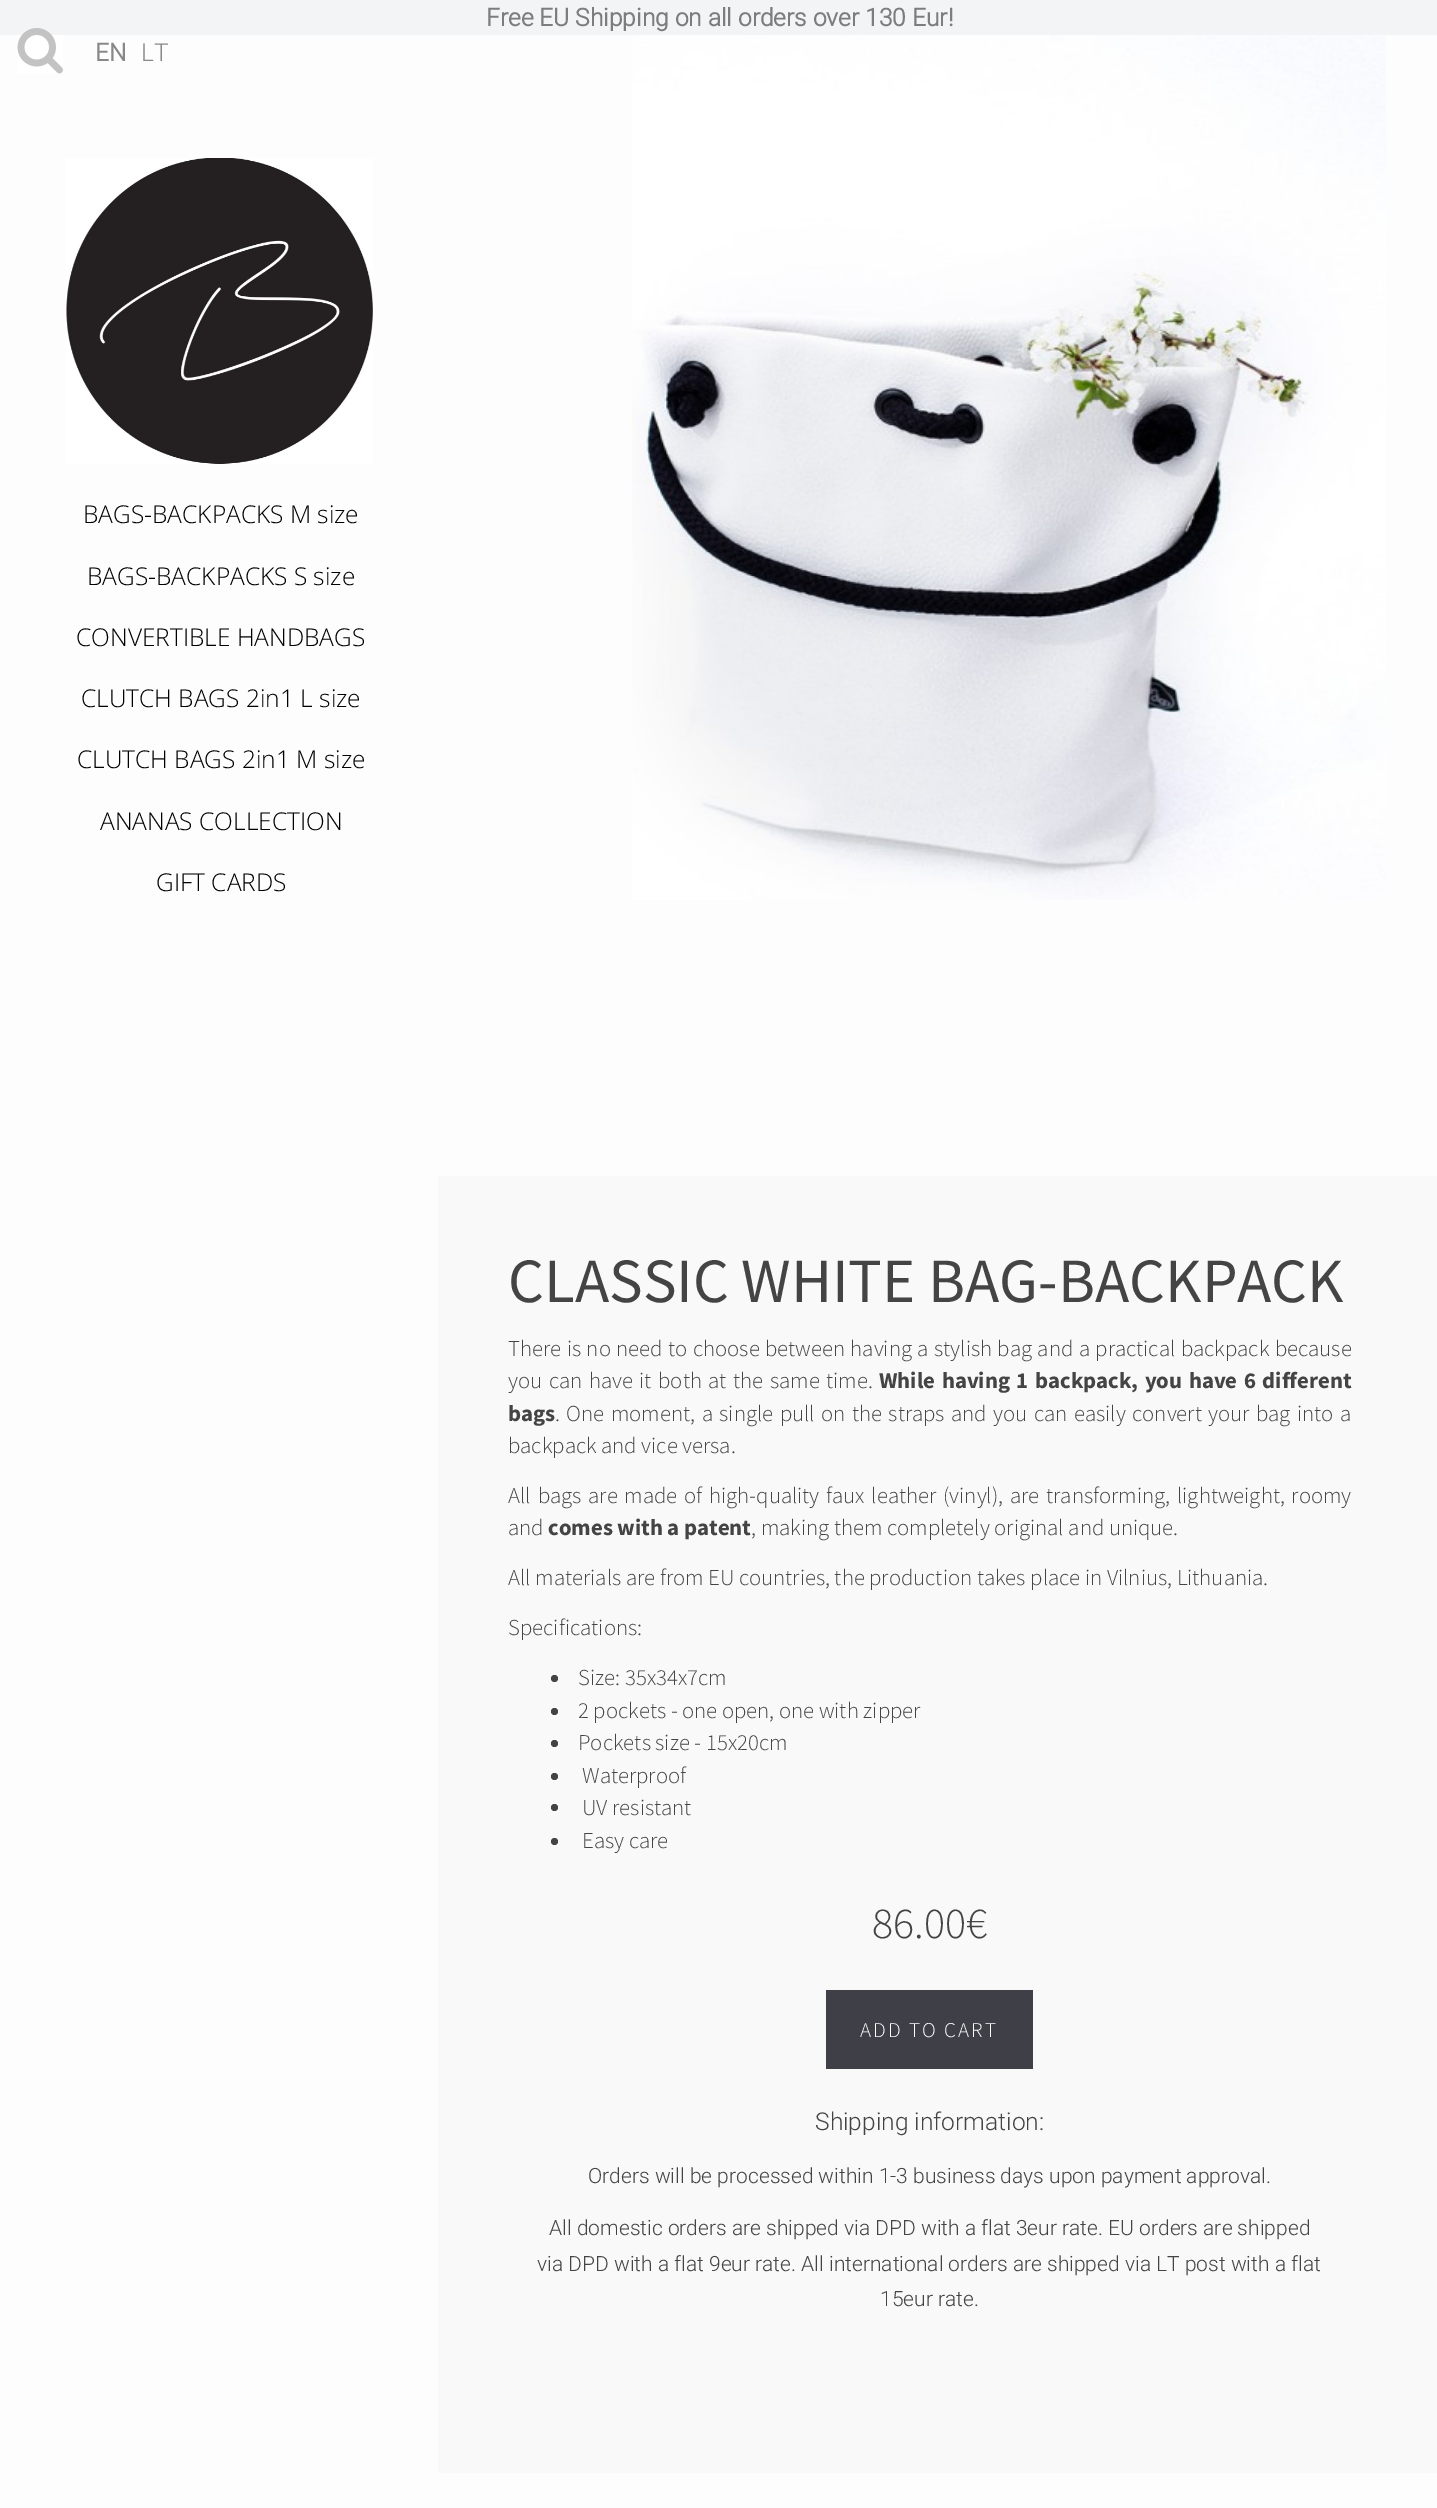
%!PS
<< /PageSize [1437 2508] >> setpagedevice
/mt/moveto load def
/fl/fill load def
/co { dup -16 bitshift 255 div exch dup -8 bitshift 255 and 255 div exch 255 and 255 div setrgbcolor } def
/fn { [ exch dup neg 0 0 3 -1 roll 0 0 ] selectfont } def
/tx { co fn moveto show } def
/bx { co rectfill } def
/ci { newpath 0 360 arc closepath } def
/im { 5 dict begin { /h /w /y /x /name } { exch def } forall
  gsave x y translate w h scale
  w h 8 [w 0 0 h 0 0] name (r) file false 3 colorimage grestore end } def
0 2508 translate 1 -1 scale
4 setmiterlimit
0 0 1437 2508 16#FDFDFD bx
0 0 1437 35 16#F2F4F5 bx
(media/1.raw) 17 28 46 46 im
(media/2.raw) 66 158 307 306 im
(media/3.raw) 632 35 754 865 im
438 1176 999 1297 16#F9F9F9 bx
16#444444 co
554.5 1678.5 3.5 ci fl
554.5 1711.5 3.5 ci fl
554.5 1743.5 3.5 ci fl
554.5 1776.5 3.5 ci fl
554.5 1807.5 3.5 ci fl
554.5 1841.5 3.5 ci fl
826 1990 207 79 16#3F3F47 bx
(Free EU Shipping on all orders over 130 Eur!) 486 26 /Roboto-Bold 24.5 16#7D7D7D tx
(EN) 95 61 /Roboto-Bold 24.5 16#888888 tx
(LT) 141 61 /Roboto-Light 24.5 16#888888 tx
(BAGS-BACKPACKS M size) 83 523 /OpenSans-Light 24.5 16#000000 tx
(BAGS-BACKPACKS S size) 87 585 /OpenSans-Light 24.5 16#000000 tx
(CONVERTIBLE HANDBAGS) 76 646 /OpenSans-Light 24.5 16#000000 tx
(CLUTCH BAGS 2in1 L size) 81 707 /OpenSans-Light 24.5 16#000000 tx
(CLUTCH BAGS 2in1 M size) 77 768 /OpenSans-Light 24.5 16#000000 tx
(ANANAS COLLECTION) 100 830 /OpenSans-Light 24.5 16#000000 tx
(GIFT CARDS) 156 891 /OpenSans-Light 24.5 16#000000 tx
(CLASSIC WHITE BAG-BACKPACK) 508 1302 /SourceSansPro-Regular 63 16#444444 tx
/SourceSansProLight-Light 22.75 fn
508 1356 mt .9 0 32 (There is no need to choose between having a stylish bag and a practical backpack because) widthshow
508 1388 mt 2 0 32 (you can have it both at the same time.) widthshow
/SourceSansPro-Bold 22.75 fn
879 1388 mt 2 0 32 (While having 1 backpack, you have 6 different) widthshow
(bags) 508 1421 /SourceSansPro-Bold 22.75 16#444444 tx
/SourceSansProLight-Light 22.75 fn
555 1421 mt 1.9 0 32 (. One moment, a single pull on the straps and you can easily convert your bag into a) widthshow
(backpack and vice versa.) 508 1453 /SourceSansProLight-Light 22.75 16#444444 tx
508 1503 mt 2.25 0 32 (All bags are made of high-quality faux leather \(vinyl\), are transforming, lightweight, roomy) widthshow
(and) 508 1535 /SourceSansProLight-Light 22.75 16#444444 tx
(comes with a patent) 548 1535 /SourceSansPro-Bold 22.75 16#444444 tx
(, making them completely original and unique.) 751 1535 /SourceSansProLight-Light 22.75 16#444444 tx
(All materials are from EU countries, the production takes place in Vilnius, Lithuania.) 508 1585 /SourceSansProLight-Light 22.75 16#444444 tx
(Specifications:) 508 1635 /SourceSansProLight-Light 22.75 16#444444 tx
(Size: 35x34x7cm) 578 1685 /SourceSansProLight-Light 22.75 16#444444 tx
(2 pockets - one open, one with zipper) 578 1718 /SourceSansProLight-Light 22.75 16#444444 tx
(Pockets size - 15x20cm) 578 1750 /SourceSansProLight-Light 22.75 16#444444 tx
(Waterproof) 582 1783 /SourceSansProLight-Light 22.75 16#444444 tx
(UV resistant) 582 1815 /SourceSansProLight-Light 22.75 16#444444 tx
(Easy care) 582 1848 /SourceSansProLight-Light 22.75 16#444444 tx
(86.00€) 872 1938 /SourceSansProLight-Light 44 16#444444 tx
/SourceSansProLight-Light 21 fn
16#FFFFFF co
860 2037 mt 2.1 0 (ADD TO CART) ashow
(Shipping information:) 815 2130 /Roboto-Light 24.5 16#444444 tx
(Orders will be processed within 1-3 business days upon payment approval.) 588 2183 /Roboto-Light 21 16#444444 tx
(All domestic orders are shipped via DPD with a flat 3eur rate. EU orders are shipped) 549 2235 /Roboto-Light 21 16#444444 tx
(via DPD with a flat 9eur rate. All international orders are shipped via LT post with a flat) 537 2271 /Roboto-Light 21 16#444444 tx
(15eur rate.) 880 2306 /Roboto-Light 21 16#444444 tx
showpage
